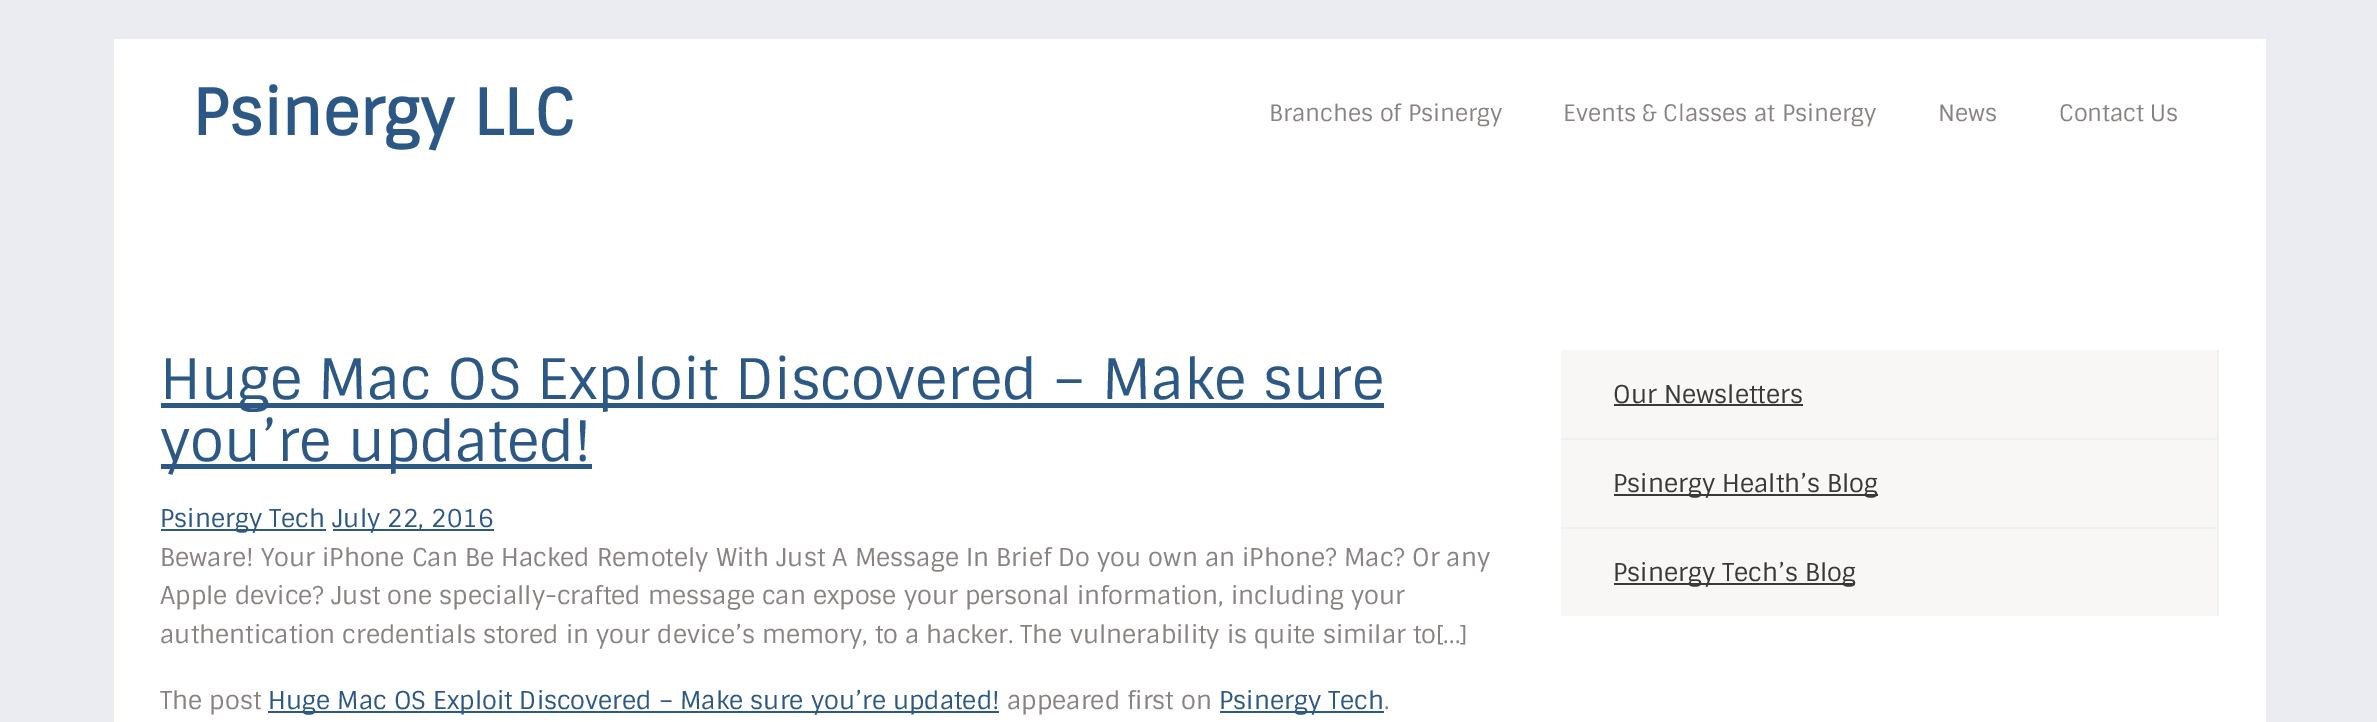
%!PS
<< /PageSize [2377 722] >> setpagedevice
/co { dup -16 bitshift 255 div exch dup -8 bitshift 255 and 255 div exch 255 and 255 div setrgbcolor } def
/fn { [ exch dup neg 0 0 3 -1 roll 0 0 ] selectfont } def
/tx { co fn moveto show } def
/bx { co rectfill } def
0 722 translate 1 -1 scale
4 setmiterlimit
0 0 2377 722 16#EAECF2 bx
114 39 2152 683 16#FFFFFF bx
161 403 1223 5 16#2C5885 bx
161 464 431 5 16#2C5885 bx
161 529 165 2 16#2C5885 bx
333 529 161 2 16#2C5885 bx
268 711 731 2 16#2C5885 bx
1220 711 164 2 16#2C5885 bx
1561 350 656 266 16#F8F7F5 bx
2217 350 2 89 16#F0F0F0 bx
1561 438 658 2 16#F0F0F0 bx
1614 404 189 2 16#393939 bx
2217 439 2 177 16#F0F0F0 bx
1561 527 658 2 16#F0F0F0 bx
1614 494 264 2 16#393939 bx
1614 583 241 2 16#393939 bx
(Psinergy LLC) 192 135 /Sintony-Bold 63 16#2C5885 tx
(Branches of Psinergy) 1269 121 /Sintony-Regular 22.75 16#888381 tx
(Events & Classes at Psinergy) 1563 121 /Sintony-Regular 22.75 16#888381 tx
(News) 1938 121 /Sintony-Regular 22.75 16#888381 tx
(Contact Us) 2059 121 /Sintony-Regular 22.75 16#888381 tx
(Huge Mac OS Exploit Discovered – Make sure) 160 399 /Sintony-Regular 56 16#2C5885 tx
(you’re updated!) 160 461 /Sintony-Regular 56 16#2C5885 tx
(Psinergy Tech) 160 527 /Sintony-Regular 24.5 16#2C5885 tx
(July 22, 2016) 332 527 /Sintony-Regular 24.5 16#2C5885 tx
(Beware! Your iPhone Can Be Hacked Remotely With Just A Message In Brief Do you own an iPhone? Mac? Or any) 160 566 /Sintony-Regular 24.5 16#888381 tx
(Apple device? Just one specially-crafted message can expose your personal information, including your) 160 604 /Sintony-Regular 24.5 16#888381 tx
(authentication credentials stored in your device’s memory, to a hacker. The vulnerability is quite similar to[...]) 160 643 /Sintony-Regular 24.5 16#888381 tx
(The post) 160 709 /Sintony-Regular 24.5 16#888381 tx
(Huge Mac OS Exploit Discovered – Make sure you’re updated!) 268 709 /Sintony-Regular 24.5 16#2C5885 tx
(appeared first on) 1007 709 /Sintony-Regular 24.5 16#888381 tx
(Psinergy Tech) 1219 709 /Sintony-Regular 24.5 16#2C5885 tx
(.) 1384 709 /Sintony-Regular 24.5 16#888381 tx
(Our Newsletters) 1613 403 /Sintony-Regular 24.5 16#393939 tx
(Psinergy Health’s Blog) 1613 492 /Sintony-Regular 24.5 16#393939 tx
(Psinergy Tech’s Blog) 1613 581 /Sintony-Regular 24.5 16#393939 tx
showpage
